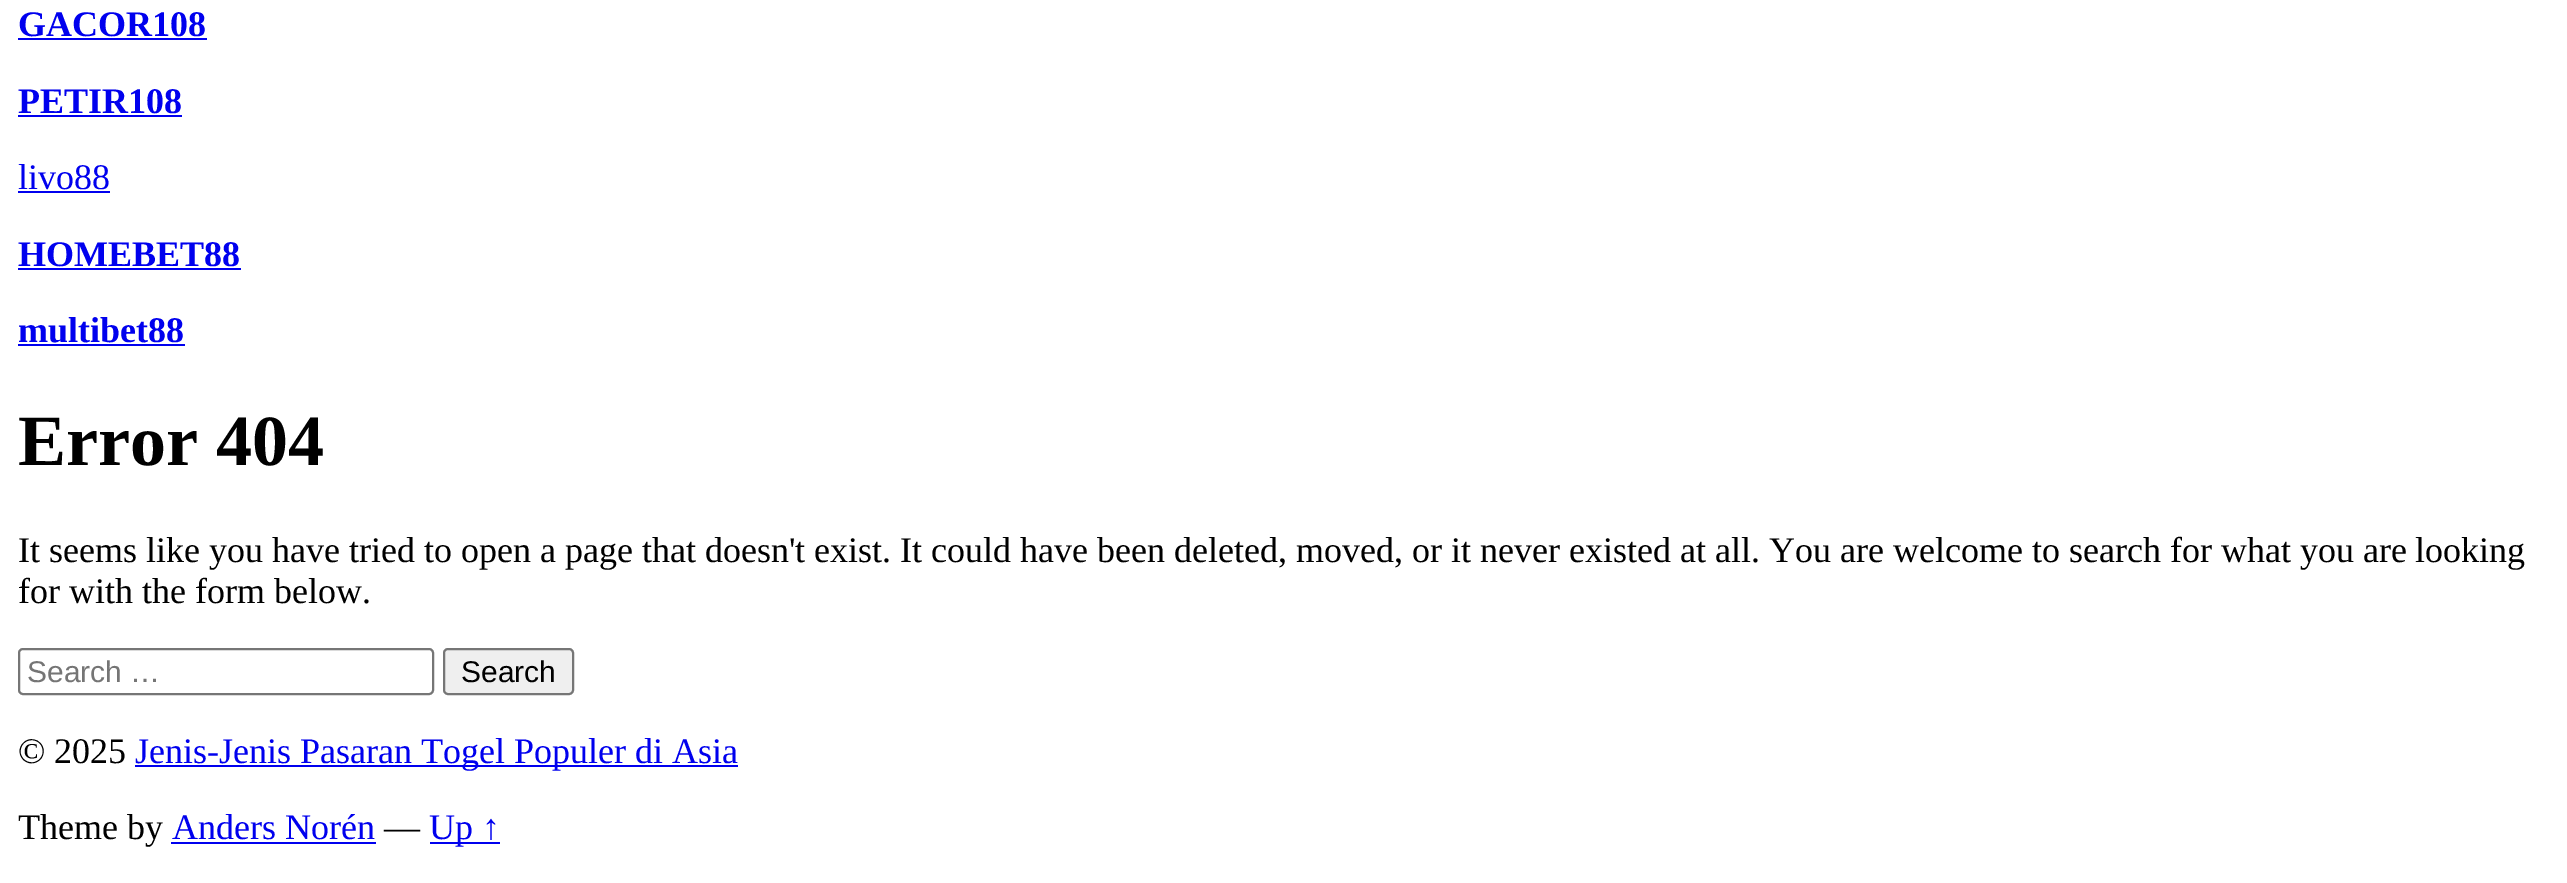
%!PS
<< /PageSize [2567 883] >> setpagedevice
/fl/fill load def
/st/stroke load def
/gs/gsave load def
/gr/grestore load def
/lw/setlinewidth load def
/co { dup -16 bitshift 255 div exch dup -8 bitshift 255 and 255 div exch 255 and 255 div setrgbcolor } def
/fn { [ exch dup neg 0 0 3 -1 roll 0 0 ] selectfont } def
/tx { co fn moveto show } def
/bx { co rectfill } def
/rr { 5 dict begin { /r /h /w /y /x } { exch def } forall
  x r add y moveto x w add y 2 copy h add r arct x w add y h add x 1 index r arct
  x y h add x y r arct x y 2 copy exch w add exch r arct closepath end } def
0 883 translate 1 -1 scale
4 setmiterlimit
0 0 2567 883 16#FFFFFF bx
18 38 189 2 16#0000EE bx
18 115 164 2 16#0000EE bx
18 191 92 2 16#0000EE bx
18 268 223 2 16#0000EE bx
18 344 167 2 16#0000EE bx
16#767676 co
2 lw
19 649 414 45 4 rr st
16#EFEFEF co
444 649 129 45 4 rr gs fl gr
16#767676 co
st
135 765 603 2 16#0000EE bx
171 842 205 2 16#0000EE bx
430 842 70 2 16#0000EE bx
(GACOR108) 18 36 /LiberationSerif-Bold 36 16#0000EE tx
(PETIR108) 18 113 /LiberationSerif-Bold 36 16#0000EE tx
(livo88) 18 189 /LiberationSerif-Regular 36 16#0000EE tx
(HOMEBET88) 18 266 /LiberationSerif-Bold 36 16#0000EE tx
(multibet88) 18 342 /LiberationSerif-Bold 36 16#0000EE tx
(Error 404) 18 465 /LiberationSerif-Bold 72 16#000000 tx
(It seems like you have tried to open a page that doesn't exist. It could have been deleted, moved, or it never existed at all. You are welcome to search for what you are looking) 18 562 /LiberationSerif-Regular 36 16#000000 tx
(for with the form below.) 18 603 /LiberationSerif-Regular 36 16#000000 tx
(Search …) 27 682 /LiberationSans-Regular 30 16#757575 tx
(Search) 461 682 /LiberationSans-Regular 30 16#000000 tx
(© 2025) 18 763 /LiberationSerif-Regular 36 16#000000 tx
(Jenis-Jenis Pasaran Togel Populer di Asia) 135 763 /LiberationSerif-Regular 36 16#0000EE tx
(Theme by) 18 839 /LiberationSerif-Regular 36 16#000000 tx
(Anders Norén) 172 839 /LiberationSerif-Regular 36 16#0000EE tx
(—) 384 839 /LiberationSerif-Regular 36 16#000000 tx
(Up ↑) 429 839 /LiberationSerif-Regular 36 16#0000EE tx
showpage
